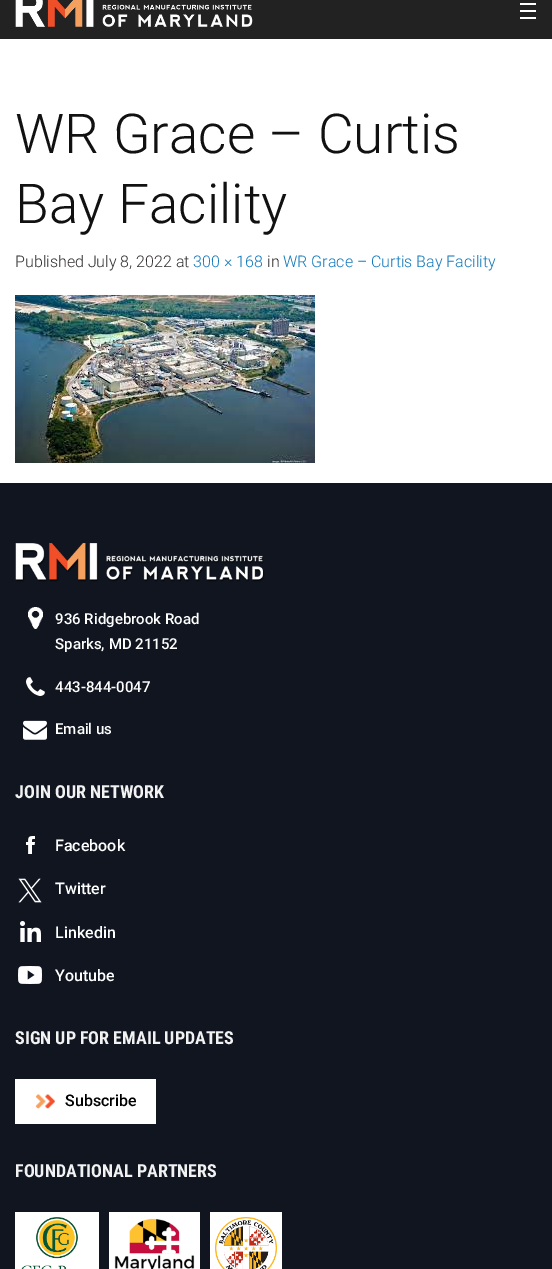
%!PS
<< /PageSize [552 1269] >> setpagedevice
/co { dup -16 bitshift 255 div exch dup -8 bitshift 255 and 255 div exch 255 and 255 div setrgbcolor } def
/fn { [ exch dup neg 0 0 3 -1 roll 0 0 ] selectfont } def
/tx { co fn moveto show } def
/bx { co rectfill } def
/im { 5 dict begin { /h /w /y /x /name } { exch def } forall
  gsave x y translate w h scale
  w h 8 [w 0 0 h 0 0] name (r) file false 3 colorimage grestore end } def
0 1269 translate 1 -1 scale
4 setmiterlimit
0 0 552 1269 16#FFFFFF bx
0 0 552 39 16#222222 bx
(media/1.raw) 15 0 238 27 im
520 10 16 2 16#FFFFFF bx
520 3 16 2 16#FFFFFF bx
520 17 16 2 16#FFFFFF bx
(media/2.raw) 15 295 300 168 im
0 483 552 786 16#101520 bx
(media/3.raw) 15 543 250 39 im
(media/4.raw) 28 607 15 22 im
(media/5.raw) 26 677 19 19 im
(media/6.raw) 23 720 24 20 im
(media/7.raw) 26 836 9 18 im
(media/8.raw) 18 878 24 25 im
(media/9.raw) 20 921 21 21 im
(media/10.raw) 18 966 24 18 im
15 1079 141 45 16#FFFFFF bx
(media/11.raw) 35 1094 20 15 im
15 1212 84 57 16#FFFFFF bx
(media/12.raw) 21 1217 57 52 im
109 1212 91 57 16#FFFFFF bx
(media/13.raw) 114 1218 81 51 im
210 1212 72 57 16#FFFFFF bx
(media/14.raw) 215 1217 62 52 im
(WR Grace – Curtis) 15 153 /Roboto-Light 55 16#111111 tx
(Bay Facility) 15 223 /Roboto-Light 55 16#111111 tx
(Published July 8, 2022 at) 15 267 /Roboto-Light 16 16#332F2F tx
(300 × 168) 193 267 /Roboto-Light 16 16#117ABC tx
(in) 267 267 /Roboto-Light 16 16#332F2F tx
(WR Grace – Curtis Bay Facility) 283 267 /Roboto-Light 16 16#117ABC tx
(936 Ridgebrook Road) 55 624 /Roboto-Medium 15 16#FFFFFF tx
(Sparks, MD 21152) 55 649 /Roboto-Medium 15 16#FFFFFF tx
(443-844-0047) 55 692 /Roboto-Medium 15 16#FFFFFF tx
(Email us) 55 734 /Roboto-Medium 15 16#FFFFFF tx
(JOIN OUR NETWORK) 15 798 /RobotoCondensed-Bold 18 16#F2F2F2 tx
(Facebook) 55 851 /Roboto-Medium 16 16#FFFFFF tx
(Twitter) 55 894 /Roboto-Medium 16 16#FFFFFF tx
(Linkedin) 55 938 /Roboto-Medium 16 16#FFFFFF tx
(Youtube) 55 981 /Roboto-Medium 16 16#FFFFFF tx
(SIGN UP FOR EMAIL UPDATES) 15 1044 /RobotoCondensed-Bold 18 16#F2F2F2 tx
(Subscribe) 65 1106 /Roboto-Medium 16 16#000000 tx
(FOUNDATIONAL PARTNERS) 15 1177 /RobotoCondensed-Bold 18 16#F2F2F2 tx
showpage
